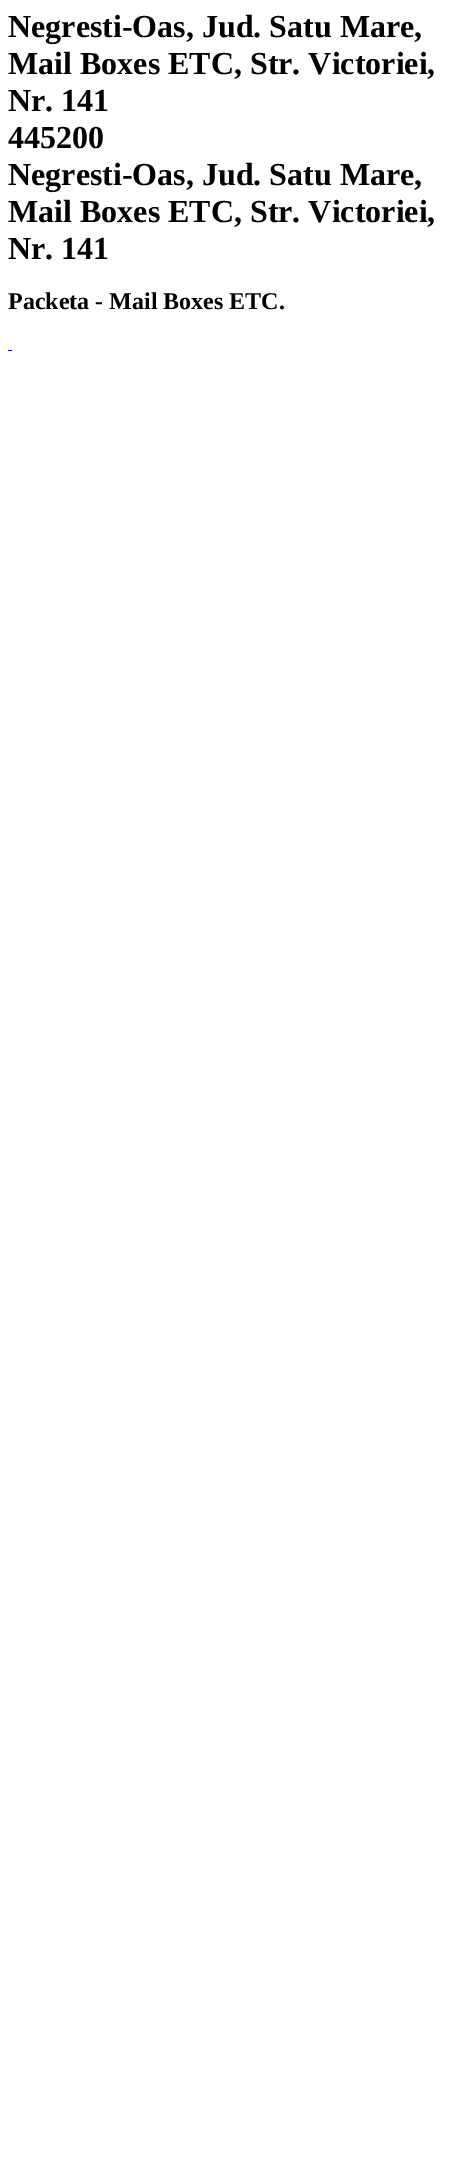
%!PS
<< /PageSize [474 2175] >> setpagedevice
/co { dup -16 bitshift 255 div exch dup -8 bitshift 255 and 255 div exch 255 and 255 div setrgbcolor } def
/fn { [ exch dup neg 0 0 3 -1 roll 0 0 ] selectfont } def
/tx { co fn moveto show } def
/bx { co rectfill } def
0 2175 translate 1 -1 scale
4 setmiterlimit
0 0 474 2175 16#FFFFFF bx
8 350 4 1 16#0000EE bx
(Negresti-Oas, Jud. Satu Mare,) 8 37 /LiberationSerif-Bold 32 16#000000 tx
(Mail Boxes ETC, Str. Victoriei,) 8 74 /LiberationSerif-Bold 32 16#000000 tx
(Nr. 141) 8 111 /LiberationSerif-Bold 32 16#000000 tx
(445200) 8 148 /LiberationSerif-Bold 32 16#000000 tx
(Negresti-Oas, Jud. Satu Mare,) 8 185 /LiberationSerif-Bold 32 16#000000 tx
(Mail Boxes ETC, Str. Victoriei,) 8 222 /LiberationSerif-Bold 32 16#000000 tx
(Nr. 141) 8 259 /LiberationSerif-Bold 32 16#000000 tx
(Packeta - Mail Boxes ETC.) 8 309 /LiberationSerif-Bold 24 16#000000 tx
showpage
